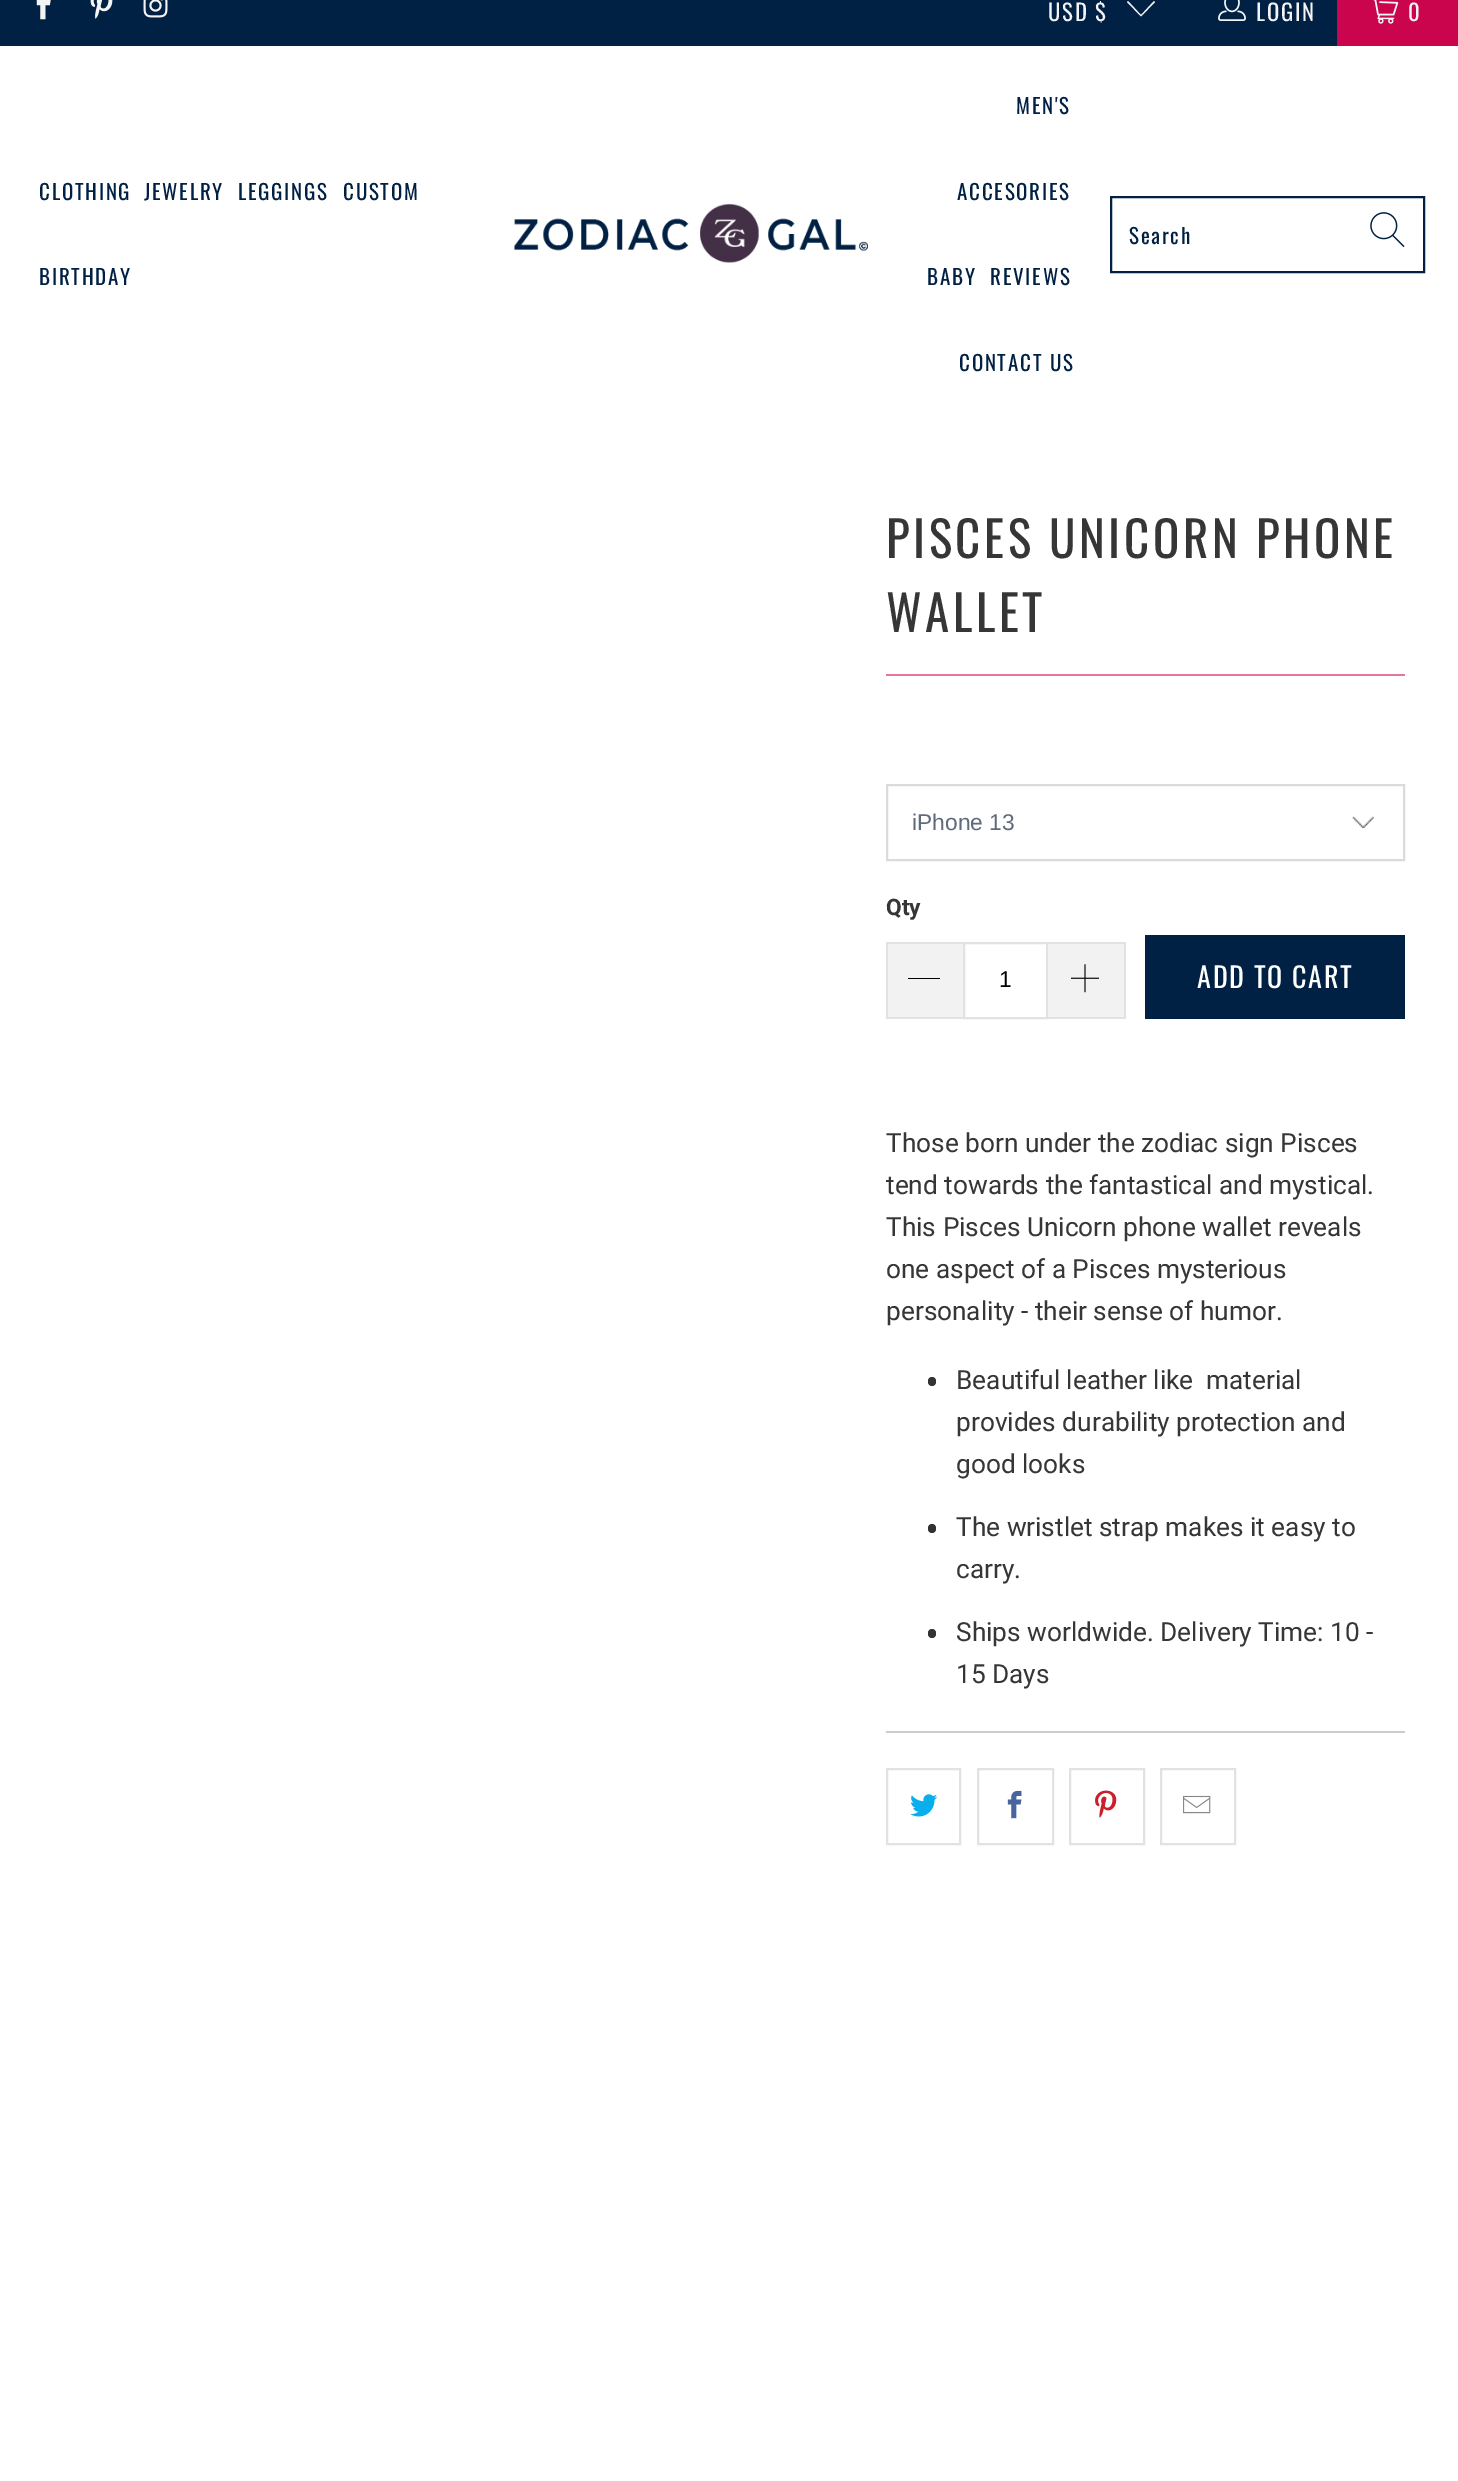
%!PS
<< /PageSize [1458 2481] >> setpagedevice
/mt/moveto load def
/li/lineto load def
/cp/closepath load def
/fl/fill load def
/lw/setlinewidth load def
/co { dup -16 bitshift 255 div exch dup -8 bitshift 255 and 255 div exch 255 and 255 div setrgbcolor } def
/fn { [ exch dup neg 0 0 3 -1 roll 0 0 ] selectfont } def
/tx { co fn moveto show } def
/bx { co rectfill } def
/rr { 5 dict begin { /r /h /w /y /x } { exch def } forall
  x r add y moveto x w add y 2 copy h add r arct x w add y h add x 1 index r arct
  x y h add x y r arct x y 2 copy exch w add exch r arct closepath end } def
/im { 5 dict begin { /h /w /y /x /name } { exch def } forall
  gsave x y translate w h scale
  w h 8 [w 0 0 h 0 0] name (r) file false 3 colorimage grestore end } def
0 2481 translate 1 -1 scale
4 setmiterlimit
0 0 1458 2481 16#FFFFFF bx
0 0 1337 46 16#002144 bx
(media/1.raw) 36 0 15 20 im
(media/2.raw) 90 0 23 19 im
(media/3.raw) 143 0 25 18 im
16#F4F4F4 co
1141 16.5 mt 1127 2 li 1128 1 li 1141 15 li 1154 1 li 1155 2 li cp fl
(media/4.raw) 1218 0 28 21 im
1337 0 121 46 16#CA054D bx
(media/5.raw) 1373 0 26 24 im
(media/6.raw) 513 203 355 60 im
16#002144 co
2 lw
1111 197 313 75 rectstroke
(media/7.raw) 1370 212 35 36 im
886 674 519 2 16#E2769D bx
(media/8.raw) 1352 816 22 13 im
16#D9DBDC co
887 785 517 75 rectstroke
888 944 75 73 16#F2F2F2 bx
886 942 77 2 16#E2E2E2 bx
886 1017 77 2 16#E2E2E2 bx
886 942 2 77 16#E2E2E2 bx
908 978 32 1 16#000000 bx
16#E2E2E2 co
964 943 83 75 rectstroke
1048 944 76 73 16#F2F2F2 bx
1048 942 77 2 16#E2E2E2 bx
1124 942 2 77 16#E2E2E2 bx
1048 1017 77 2 16#E2E2E2 bx
(media/9.raw) 1071 964 28 29 im
1145 935 260 84 16#002144 bx
16#333333 co
928 1377 8 9 4 rr fl
928 1524 8 9 4 rr fl
928 1629 8 9 4 rr fl
886 1731 519 2 16#CCCCCC bx
16#E2E2E2 co
887 1769 73 75 rectstroke
(media/10.raw) 910 1794 28 23 im
978 1769 75 75 rectstroke
(media/11.raw) 1007 1790 15 29 im
1070 1769 74 75 rectstroke
(media/12.raw) 1095 1790 22 28 im
1161 1769 74 75 rectstroke
(media/13.raw) 1183 1795 28 19 im
/Oswald-Regular 22.75 fn
16#F4F4F4 co
1048 21 mt 1.75 0 (USD $) ashow
1256 21 mt 1.75 0 (LOGIN) ashow
1408 21 mt 1.75 0 (0) ashow
/Oswald-Regular 21 fn
16#002144 co
39 200 mt 1.75 0 (CLOTHING) ashow
144 200 mt 1.75 0 (JEWELRY) ashow
238 200 mt 1.75 0 (LEGGINGS) ashow
343 200 mt 1.75 0 (CUSTOM) ashow
39 285 mt 1.75 0 (BIRTHDAY) ashow
1016 114 mt 1.75 0 (MEN'S) ashow
957 200 mt 1.75 0 (ACCESORIES) ashow
927 285 mt 1.75 0 (BABY) ashow
990 285 mt 1.75 0 (REVIEWS) ashow
959 371 mt 1.75 0 (CONTACT US) ashow
1129 244 mt 1.75 0 (Search) ashow
/Oswald-Regular 49 fn
16#363636 co
886 558 mt 3.5 0 (PISCES UNICORN PHONE) ashow
886 632 mt 3.5 0 (WALLET) ashow
(iPhone 13) 912 830 /LiberationSans-Regular 22.75 16#5F6A7D tx
(Qty) 886 915 /Roboto-Bold 22.75 16#363636 tx
(1) 999 987 /LiberationSans-Regular 22.75 16#000000 tx
/Oswald-Regular 28 fn
16#FFFFFF co
1197 988 mt 1.75 0 (ADD TO CART) ashow
(Those born under the zodiac sign Pisces) 886 1152 /Roboto-Regular 26.25 16#363636 tx
(tend towards the fantastical and mystical.) 886 1194 /Roboto-Regular 26.25 16#363636 tx
(This Pisces Unicorn phone wallet reveals) 886 1236 /Roboto-Regular 26.25 16#363636 tx
(one aspect of a Pisces mysterious) 886 1278 /Roboto-Regular 26.25 16#363636 tx
(personality - their sense of humor.) 886 1320 /Roboto-Regular 26.25 16#363636 tx
(Beautiful leather like  material) 956 1389 /Roboto-Regular 26.25 16#363636 tx
(provides durability protection and) 956 1431 /Roboto-Regular 26.25 16#363636 tx
(good looks) 956 1473 /Roboto-Regular 26.25 16#363636 tx
(The wristlet strap makes it easy to) 956 1536 /Roboto-Regular 26.25 16#363636 tx
(carry.) 956 1578 /Roboto-Regular 26.25 16#363636 tx
(Ships worldwide. Delivery Time: 10 -) 956 1641 /Roboto-Regular 26.25 16#363636 tx
(15 Days) 956 1683 /Roboto-Regular 26.25 16#363636 tx
showpage
